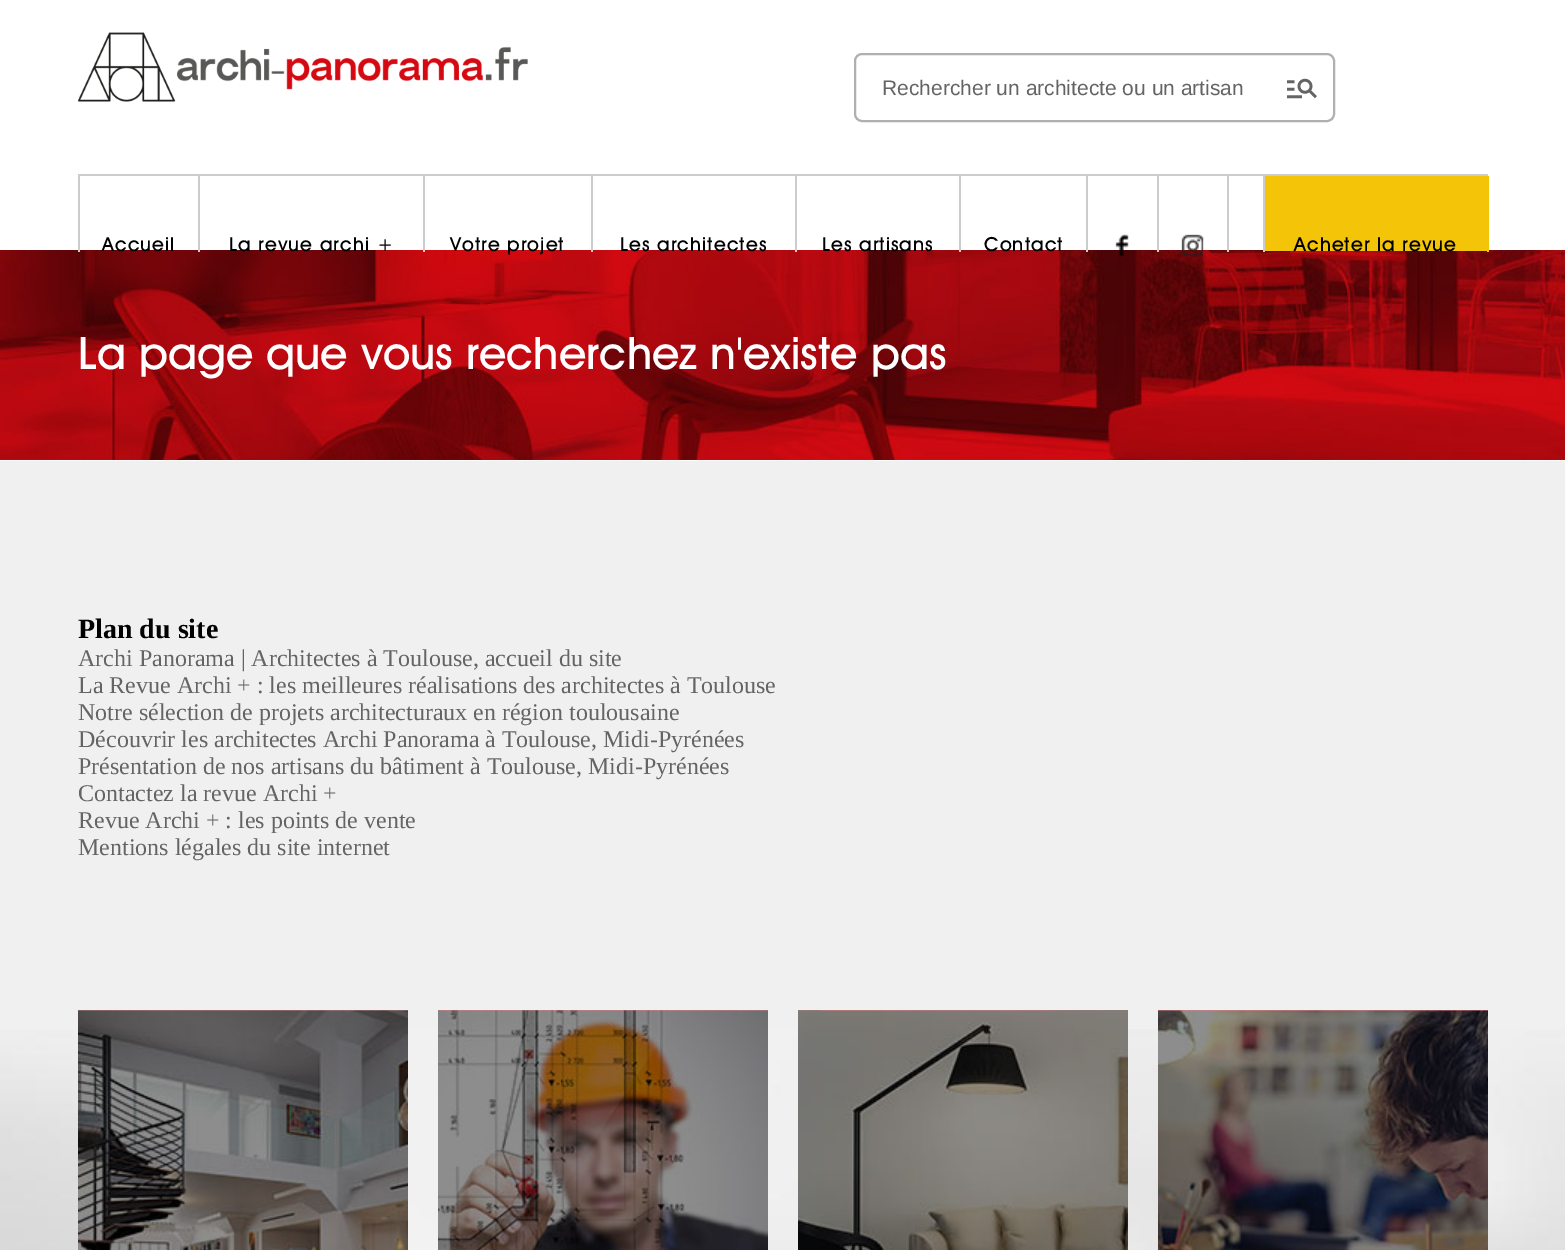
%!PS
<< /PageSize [1565 1250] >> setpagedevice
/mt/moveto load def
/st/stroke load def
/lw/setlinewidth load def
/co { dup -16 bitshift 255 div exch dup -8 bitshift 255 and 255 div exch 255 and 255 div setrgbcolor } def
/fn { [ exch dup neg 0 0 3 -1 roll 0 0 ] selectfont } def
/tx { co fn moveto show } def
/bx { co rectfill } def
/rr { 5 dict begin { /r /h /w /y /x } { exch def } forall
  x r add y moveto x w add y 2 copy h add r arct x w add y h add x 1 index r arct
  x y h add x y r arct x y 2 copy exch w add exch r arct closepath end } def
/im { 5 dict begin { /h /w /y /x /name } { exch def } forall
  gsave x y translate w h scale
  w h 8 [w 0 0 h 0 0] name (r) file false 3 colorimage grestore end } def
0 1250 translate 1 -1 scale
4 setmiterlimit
0 0 1565 1250 16#FFFFFF bx
78 174 1410 2 16#CCCCCC bx
(media/1.raw) 78 32 450 70 im
16#B0B0B0 co
2 lw
855 54 479 67 7 rr st
(media/2.raw) 1287 78 30 21 im
(media/5.raw) 0 250 1565 210 im
78 176 2 76 16#CCCCCC bx
198 176 2 76 16#CCCCCC bx
423 176 2 76 16#CCCCCC bx
591 176 2 76 16#CCCCCC bx
795 176 2 76 16#CCCCCC bx
959 176 2 76 16#CCCCCC bx
1086 176 2 76 16#CCCCCC bx
(media/3.raw) 1115 234 14 23 im
1157 176 2 76 16#CCCCCC bx
(media/4.raw) 1181 234 23 23 im
1263 176 2 76 16#CCCCCC bx
1227 176 2 76 16#CCCCCC bx
1265 176 222 75 16#F3C408 bx
1487 176 2 76 16#F3C408 bx
0 461 1565 568 16#F0F0F0 bx
(media/6.raw) 0 1029 1565 221 im
(media/7.raw) 78 1010 330 1 im
(media/8.raw) 78 1010 330 240 im
(media/9.raw) 438 1010 330 1 im
(media/10.raw) 438 1010 330 240 im
(media/11.raw) 798 1010 330 1 im
(media/12.raw) 798 1010 330 240 im
(media/13.raw) 1158 1010 330 1 im
(media/14.raw) 1158 1010 330 240 im
(Rechercher un architecte ou un artisan) 882 95 /LiberationSans-Regular 21 16#646464 tx
/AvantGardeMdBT-Medium 19.5 fn
16#000000 co
102 251 mt 1 0 (Accueil) ashow
229 251 mt 1 0 (La revue archi +) ashow
450 251 mt 1 0 (Votre projet) ashow
620 251 mt 1 0 (Les architectes) ashow
822 251 mt 1 0 (Les artisans) ashow
984 251 mt 1 0 (Contact) ashow
1294 251 mt 1 0 (Acheter la revue) ashow
(La page que vous recherchez n'existe pas) 78 369 /AvantGardeMdBT-Medium 45 16#FFFFFF tx
(Plan du site) 78 638 /LiberationSerif-Bold 28 16#000000 tx
(Archi Panorama | Architectes à Toulouse, accueil du site) 78 666 /LiberationSerif-Regular 24 16#646464 tx
(La Revue Archi + : les meilleures réalisations des architectes à Toulouse) 78 693 /LiberationSerif-Regular 24 16#646464 tx
(Notre sélection de projets architecturaux en région toulousaine) 78 720 /LiberationSerif-Regular 24 16#646464 tx
(Découvrir les architectes Archi Panorama à Toulouse, Midi-Pyrénées) 78 747 /LiberationSerif-Regular 24 16#646464 tx
(Présentation de nos artisans du bâtiment à Toulouse, Midi-Pyrénées) 78 774 /LiberationSerif-Regular 24 16#646464 tx
(Contactez la revue Archi +) 78 801 /LiberationSerif-Regular 24 16#646464 tx
(Revue Archi + : les points de vente) 78 828 /LiberationSerif-Regular 24 16#646464 tx
(Mentions légales du site internet) 78 855 /LiberationSerif-Regular 24 16#646464 tx
showpage
